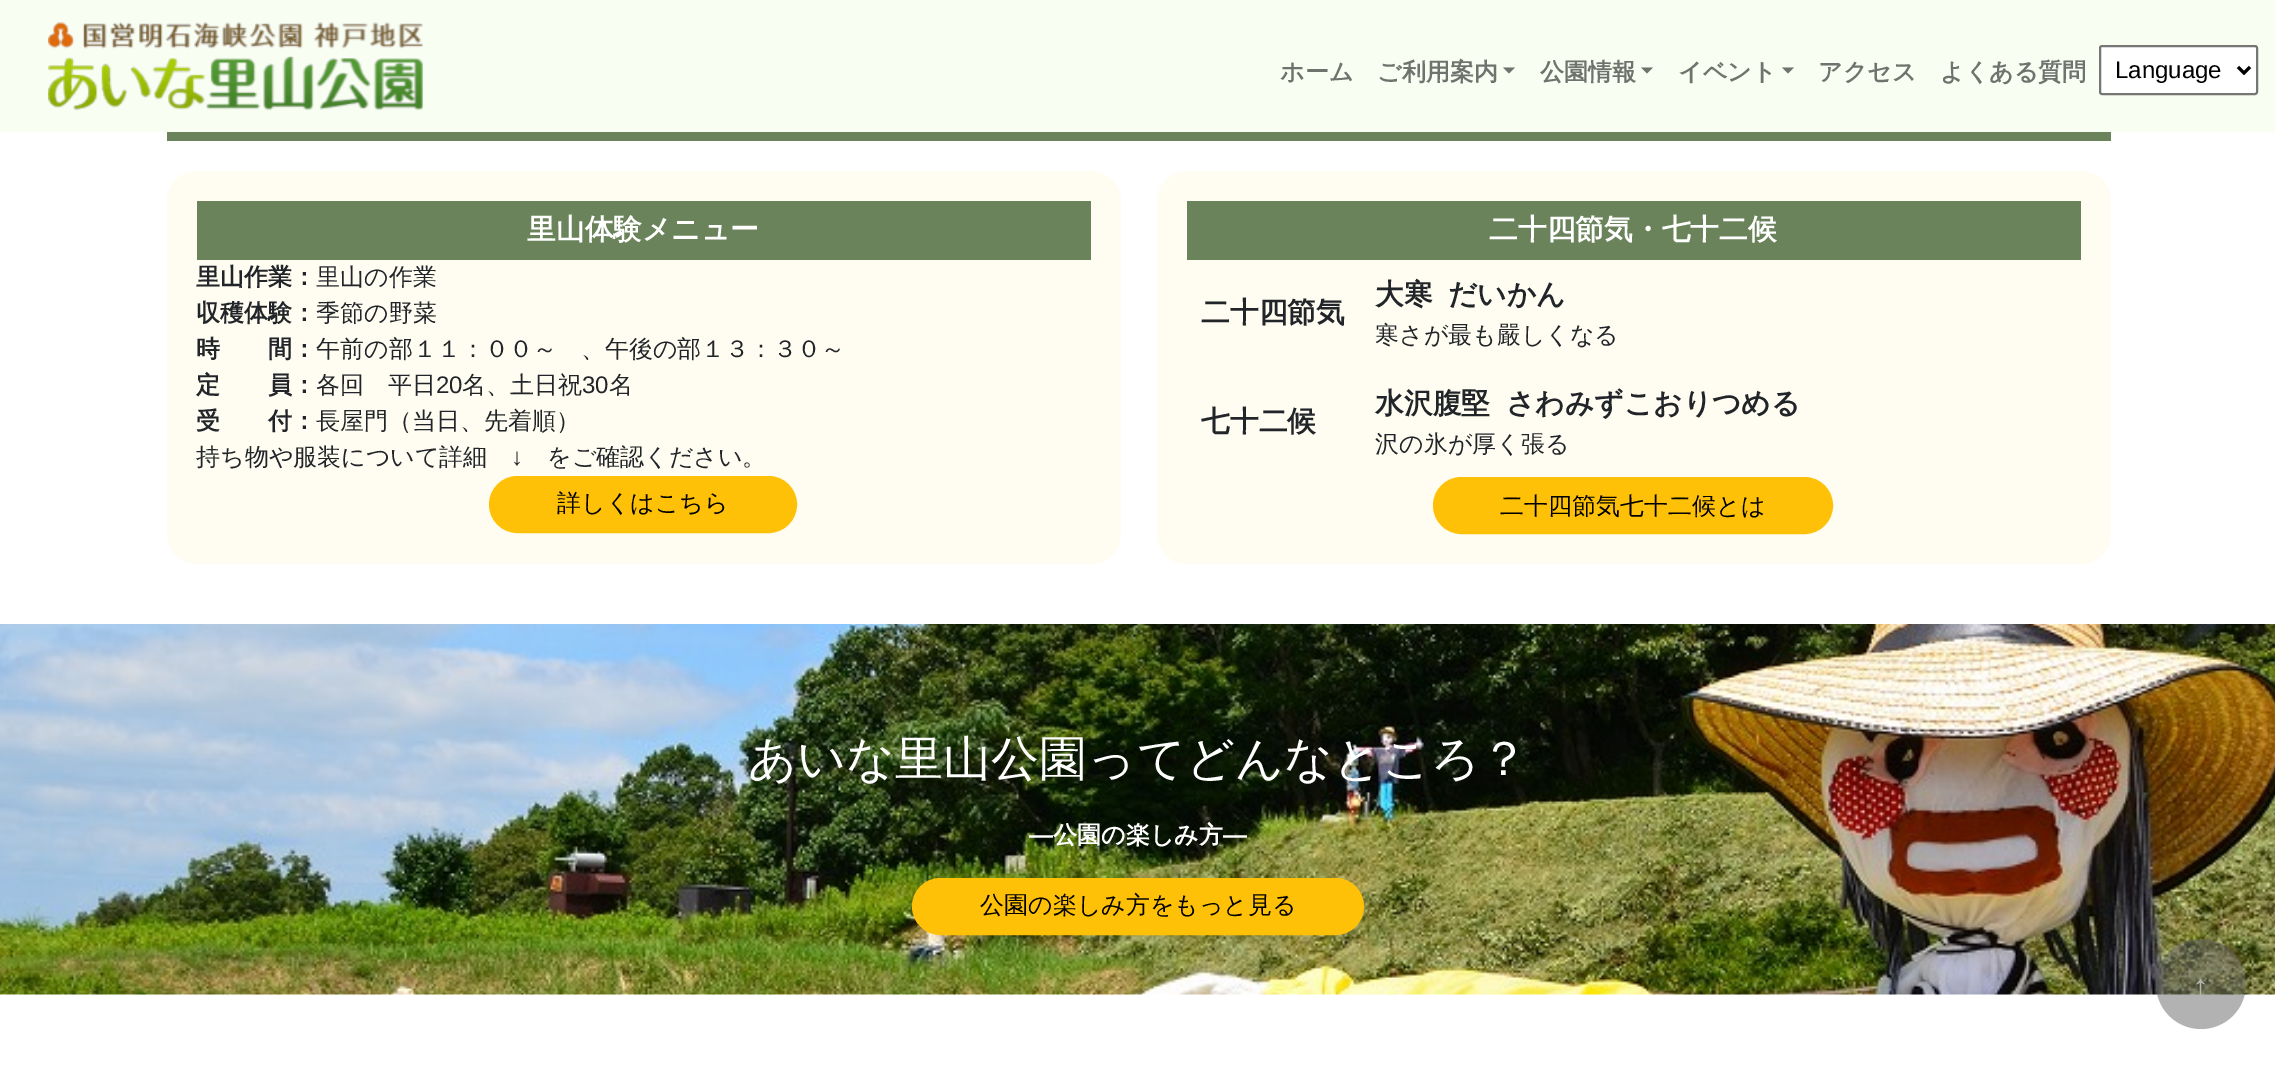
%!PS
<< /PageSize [2275 1082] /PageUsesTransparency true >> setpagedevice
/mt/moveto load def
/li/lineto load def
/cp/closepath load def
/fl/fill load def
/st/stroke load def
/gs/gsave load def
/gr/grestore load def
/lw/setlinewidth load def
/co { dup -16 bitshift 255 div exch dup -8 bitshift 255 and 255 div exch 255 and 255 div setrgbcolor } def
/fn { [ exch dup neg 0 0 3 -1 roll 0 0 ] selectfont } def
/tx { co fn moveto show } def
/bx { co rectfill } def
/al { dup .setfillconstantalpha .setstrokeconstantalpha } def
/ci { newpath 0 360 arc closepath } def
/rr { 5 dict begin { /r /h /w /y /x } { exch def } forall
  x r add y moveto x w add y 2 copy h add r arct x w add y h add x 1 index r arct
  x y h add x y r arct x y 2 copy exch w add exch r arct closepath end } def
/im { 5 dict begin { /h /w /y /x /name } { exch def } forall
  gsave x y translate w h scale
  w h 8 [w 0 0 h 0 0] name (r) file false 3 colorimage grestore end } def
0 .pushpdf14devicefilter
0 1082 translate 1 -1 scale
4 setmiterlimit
0 0 2275 1082 16#FFFFFF bx
0 0 2275 132 16#F8FFF2 bx
(media/1.raw) 48 22 375 89 im
16#70736D co
1503 67.5 mt 1515 67.5 li 1509 73.5 li cp fl
1641 67.5 mt 1653 67.5 li 1647 73.5 li cp fl
1782 67.5 mt 1794 67.5 li 1788 73.5 li cp fl
16#FFFFFF co
2100 46 157 48 2 rr gs fl gr
16#767676 co
2 lw
st
16#000000 co
3 lw
2238 67 mt 2244 73 li 2250 67 li st
167 132 1944 9 16#6A835A bx
16#FFFDF1 co
167 171 954 393 30 rr fl
197 201 894 59 16#6A835A bx
16#FFC107 co
490 477 306 55 27.5 rr gs fl gr
2 lw
st
16#FFFDF1 co
1157 171 954 393 30 rr fl
1187 201 894 59 16#6A835A bx
16#FFC107 co
1434 478 398 55 27.5 rr gs fl gr
st
(media/2.raw) 0 624 2275 371 im
913 879 450 55 27.5 rr gs fl gr
st
0.5 al
16#666666 co
2201 984 45 ci fl
1 al
(ホーム) 1280 80 /WenQuanYiZenHei-Bold 24 16#70736D tx
(ご利用案内) 1377 80 /WenQuanYiZenHei-Bold 24 16#70736D tx
(公園情報) 1540 80 /WenQuanYiZenHei-Bold 24 16#70736D tx
(イベント) 1678 80 /WenQuanYiZenHei-Bold 24 16#70736D tx
(アクセス) 1818 80 /WenQuanYiZenHei-Bold 24 16#70736D tx
(よくある質問) 1940 80 /WenQuanYiZenHei-Bold 24 16#70736D tx
(Language) 2115 78 /LiberationSans-Regular 24 16#000000 tx
(里山体験メニュー) 527 239 /WenQuanYiZenHei-Bold 28.75 16#FFFFFF tx
(里山作業：) 196 285 /WenQuanYiZenHei-Bold 24 16#212529 tx
(里山の作業) 316 285 /WenQuanYiZenHei-Medium 24 16#212529 tx
(収穫体験：) 196 321 /WenQuanYiZenHei-Bold 24 16#212529 tx
(季節の野菜) 316 321 /WenQuanYiZenHei-Medium 24 16#212529 tx
(時　　間：) 196 357 /WenQuanYiZenHei-Bold 24 16#212529 tx
(午前の部１１：００～　、午後の部１３：３０～) 316 357 /WenQuanYiZenHei-Medium 24 16#212529 tx
(定　　員：) 196 393 /WenQuanYiZenHei-Bold 24 16#212529 tx
(各回　平日) 316 393 /WenQuanYiZenHei-Medium 24 16#212529 tx
(20) 436 393 /LiberationSans-Regular 24 16#212529 tx
(名、土日祝) 462 393 /WenQuanYiZenHei-Medium 24 16#212529 tx
(30) 582 393 /LiberationSans-Regular 24 16#212529 tx
(名) 609 393 /WenQuanYiZenHei-Medium 24 16#212529 tx
(受　　付：) 196 429 /WenQuanYiZenHei-Bold 24 16#212529 tx
(長屋門（当日、先着順）) 316 429 /WenQuanYiZenHei-Medium 24 16#212529 tx
(持ち物や服装について詳細) 196 465 /WenQuanYiZenHei-Medium 24 16#212529 tx
(↓) 511 465 /LiberationSans-Regular 24 16#212529 tx
(をご確認ください。) 547 465 /WenQuanYiZenHei-Medium 24 16#212529 tx
(詳しくはこちら) 557 511 /WenQuanYiZenHei-Medium 24 16#000000 tx
(二十四節気・七十二候) 1489 239 /WenQuanYiZenHei-Bold 28.75 16#FFFFFF tx
(二十四節気) 1201 322 /WenQuanYiZenHei-Bold 28.75 16#212529 tx
(大寒) 1375 304 /WenQuanYiZenHei-Bold 28.75 16#212529 tx
(だいかん) 1448 304 /WenQuanYiZenHei-Bold 28.75 16#212529 tx
(寒さが最も嚴しくなる) 1375 343 /WenQuanYiZenHei-Medium 24 16#212529 tx
(七十二候) 1201 431 /WenQuanYiZenHei-Bold 28.75 16#212529 tx
(水沢腹堅) 1375 413 /WenQuanYiZenHei-Bold 28.75 16#212529 tx
(さわみずこおりつめる) 1506 413 /WenQuanYiZenHei-Bold 28.75 16#212529 tx
(沢の氷が厚く張る) 1375 452 /WenQuanYiZenHei-Medium 24 16#212529 tx
(二十四節気七十二候とは) 1500 514 /WenQuanYiZenHei-Medium 24 16#000000 tx
(あいな里山公園ってどんなところ？) 748 775 /WenQuanYiZenHei-Medium 48 16#FFFFFF tx
(―) 1029 843 /LiberationSans-Bold 24 16#FFFFFF tx
(公園の楽しみ方) 1053 843 /WenQuanYiZenHei-Bold 24 16#FFFFFF tx
(―) 1223 843 /LiberationSans-Bold 24 16#FFFFFF tx
(公園の楽しみ方をもっと見る) 980 913 /WenQuanYiZenHei-Medium 24 16#000000 tx
(↑) 2192 998 /LiberationSans-Regular 34 16#B6B7AC tx
.poppdf14devicefilter showpage
